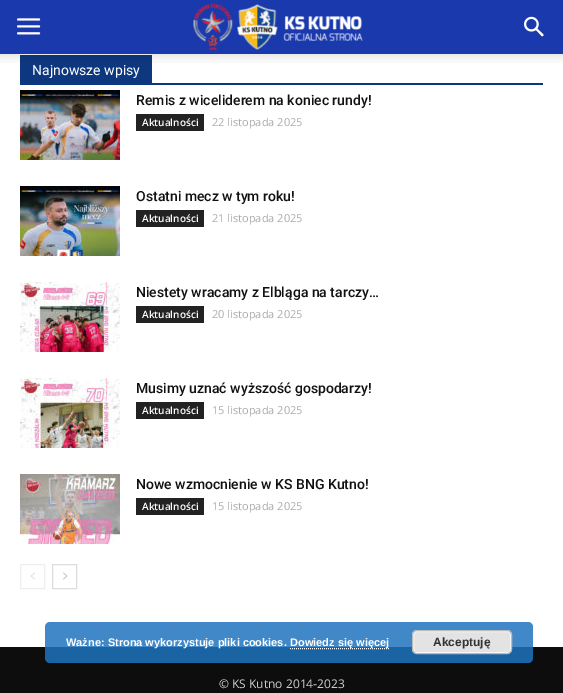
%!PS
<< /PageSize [563 693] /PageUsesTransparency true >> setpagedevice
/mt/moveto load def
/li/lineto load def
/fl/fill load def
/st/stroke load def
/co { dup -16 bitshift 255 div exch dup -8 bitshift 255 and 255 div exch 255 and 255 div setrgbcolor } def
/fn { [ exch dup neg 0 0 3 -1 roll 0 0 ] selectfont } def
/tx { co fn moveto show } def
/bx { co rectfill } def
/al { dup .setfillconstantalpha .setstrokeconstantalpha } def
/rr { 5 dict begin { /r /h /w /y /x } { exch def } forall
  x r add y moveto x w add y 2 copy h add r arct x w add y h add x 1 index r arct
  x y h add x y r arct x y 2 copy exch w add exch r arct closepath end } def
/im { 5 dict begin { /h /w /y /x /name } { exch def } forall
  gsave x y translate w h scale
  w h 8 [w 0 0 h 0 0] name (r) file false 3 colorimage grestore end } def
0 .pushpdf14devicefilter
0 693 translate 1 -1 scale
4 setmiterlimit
0 0 563 693 16#FFFFFF bx
0 0 563 54 16#1A39AD bx
(media/1.raw) 17 18 24 17 im
(media/2.raw) 193 3 170 48 im
(media/3.raw) 524 16 20 21 im
20 55 132 28 16#0D377F bx
(media/4.raw) 0 54 563 9 im
20 83 523 2 16#0D377F bx
(media/5.raw) 20 90 100 70 im
136 114 68 17 16#222222 bx
(media/6.raw) 20 186 100 70 im
136 210 68 17 16#222222 bx
(media/7.raw) 20 282 100 70 im
136 306 68 17 16#222222 bx
(media/8.raw) 20 378 100 70 im
136 402 68 17 16#222222 bx
(media/9.raw) 20 474 100 70 im
136 498 68 17 16#222222 bx
16#EEEEEE co
20.5 564.5 24 24 rectstroke
(media/10.raw) 30 572 5 8 im
16#DCDCDC co
52.5 564.5 24 24 rectstroke
(media/11.raw) 63 572 5 8 im
0 647 563 46 16#0D0D0D bx
0.85 al
16#1E73BE co
45 622 488 41 5 rr fl
1 al
16#FFFFFF co
[1 1] 0 setdash
290 648.5 mt 389 648.5 li st
16#E3E3E3 co
412 630 100 24 5 rr fl
16#F6F6F6 co
[] 0 setdash
413.5 631.5 97 21 3.5 rr st
16#BBBBBB co
412.5 630.5 99 23 4.5 rr st
(Najnowsze wpisy) 32 75 /Roboto-Regular 14 16#FFFFFF tx
(Remis z wiceliderem na koniec rundy!) 136 105 /Roboto-Medium 14 16#111111 tx
(Aktualności) 142 126 /OpenSans-SemiBold 10 16#FFFFFF tx
(22 listopada 2025) 212 126 /OpenSans-Regular 11 16#AAAAAA tx
(Ostatni mecz w tym roku!) 136 201 /Roboto-Medium 14 16#111111 tx
(Aktualności) 142 222 /OpenSans-SemiBold 10 16#FFFFFF tx
(21 listopada 2025) 212 222 /OpenSans-Regular 11 16#AAAAAA tx
(Niestety wracamy z Elbląga na tarczy…) 136 297 /Roboto-Medium 14 16#111111 tx
(Aktualności) 142 318 /OpenSans-SemiBold 10 16#FFFFFF tx
(20 listopada 2025) 212 318 /OpenSans-Regular 11 16#AAAAAA tx
(Musimy uznać wyższość gospodarzy!) 136 393 /Roboto-Medium 14 16#111111 tx
(Aktualności) 142 414 /OpenSans-SemiBold 10 16#FFFFFF tx
(15 listopada 2025) 212 414 /OpenSans-Regular 11 16#AAAAAA tx
(Nowe wzmocnienie w KS BNG Kutno!) 136 489 /Roboto-Medium 14 16#111111 tx
(Aktualności) 142 510 /OpenSans-SemiBold 10 16#FFFFFF tx
(15 listopada 2025) 212 510 /OpenSans-Regular 11 16#AAAAAA tx
(© KS Kutno 2014-2023) 219 688 /OpenSans-Regular 12 16#CCCCCC tx
(Ważne: Strona wykorzystuje pliki cookies.) 66 646 /LiberationSans-Bold 11 16#FFFFFF tx
(Dowiedz się więcej) 290 646 /LiberationSans-Bold 11 16#FFFFFF tx
(Akceptuję) 433 646 /LiberationSans-Bold 12 16#333333 tx
.poppdf14devicefilter showpage
